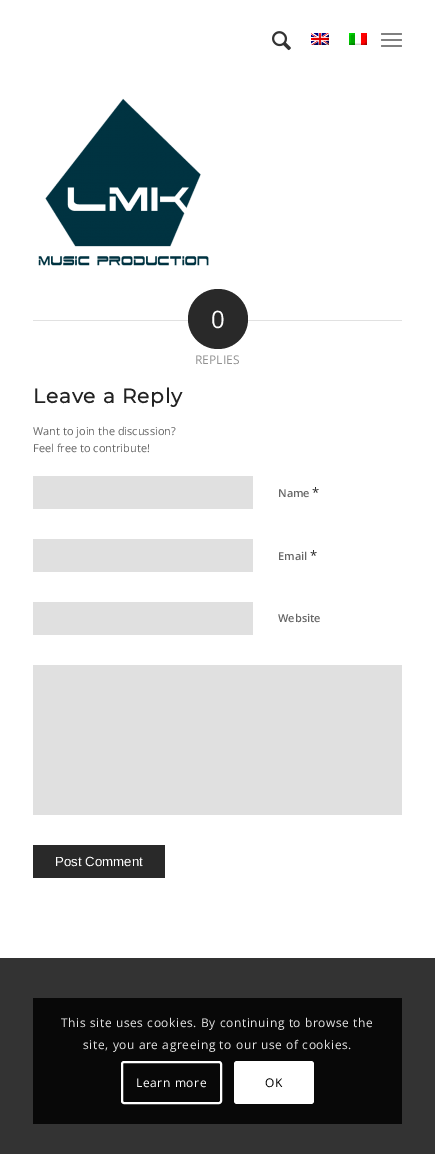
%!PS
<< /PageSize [435 1154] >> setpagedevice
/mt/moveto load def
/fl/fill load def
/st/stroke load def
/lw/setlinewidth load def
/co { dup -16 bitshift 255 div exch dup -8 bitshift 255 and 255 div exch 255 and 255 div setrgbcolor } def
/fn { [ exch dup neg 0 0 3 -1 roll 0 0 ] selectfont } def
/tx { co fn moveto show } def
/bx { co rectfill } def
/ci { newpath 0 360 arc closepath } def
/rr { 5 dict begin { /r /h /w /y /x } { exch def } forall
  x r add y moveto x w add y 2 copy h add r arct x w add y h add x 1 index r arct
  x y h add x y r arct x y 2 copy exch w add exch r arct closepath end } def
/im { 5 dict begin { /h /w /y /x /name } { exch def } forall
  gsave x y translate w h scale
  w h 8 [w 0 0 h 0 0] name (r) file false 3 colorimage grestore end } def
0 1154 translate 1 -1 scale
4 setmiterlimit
0 0 435 1154 16#333333 bx
0 0 435 958 16#FFFFFF bx
(media/1.raw) 272 31 19 20 im
(media/2.raw) 311 33 18 12 im
(media/3.raw) 349 33 18 12 im
16#808080 co
381 39 21 2 1 rr fl
381 33 21 2 1 rr fl
381 45 21 2 1 rr fl
(media/4.raw) 38 98 171 168 im
33 320 155 1 16#E1E1E1 bx
247 320 155 1 16#E1E1E1 bx
16#292929 co
218 319 30 ci fl
33 476 220 33 16#E0E0E0 bx
33 539 220 33 16#E0E0E0 bx
33 602 220 33 16#E0E0E0 bx
33 665 369 150 16#E0E0E0 bx
33 845 132 33 16#292929 bx
33 998 369 126 16#080808 bx
16#FFFFFF co
2 lw
122 1062 99 41 2 rr st
234 1061 80 43 3 rr fl
(0) 211 328 /OpenSans-Regular 24 16#FFFFFF tx
(REPLIES) 195 364 /OpenSans-Regular 12 16#919191 tx
/Montserrat-Bold 20 fn
16#222222 co
33 403 mt 1 0 (Leave a Reply) ashow
(Want to join the discussion?) 33 435 /OpenSans-Regular 11 16#666666 tx
(Feel free to contribute!) 33 452 /OpenSans-Regular 11 16#666666 tx
(Name) 278 497 /OpenSans-SemiBold 11 16#666666 tx
(*) 312 497 /OpenSans-Regular 13 16#292929 tx
(Email) 278 560 /OpenSans-SemiBold 11 16#666666 tx
(*) 310 560 /OpenSans-Regular 13 16#292929 tx
(Website) 278 622 /OpenSans-SemiBold 11 16#666666 tx
(Post Comment) 55 866 /LiberationSans-Regular 13.25 16#FFFFFF tx
/OpenSans-Regular 12 fn
16#E6E6E6 co
61 1027 mt .6 0 (This site uses cookies. By continuing to browse the) ashow
83 1049 mt .6 0 (site, you are agreeing to our use of cookies.) ashow
16#FFFFFF co
136 1087 mt .6 0 (Learn more) ashow
16#000000 co
265 1087 mt .6 0 (OK) ashow
showpage
